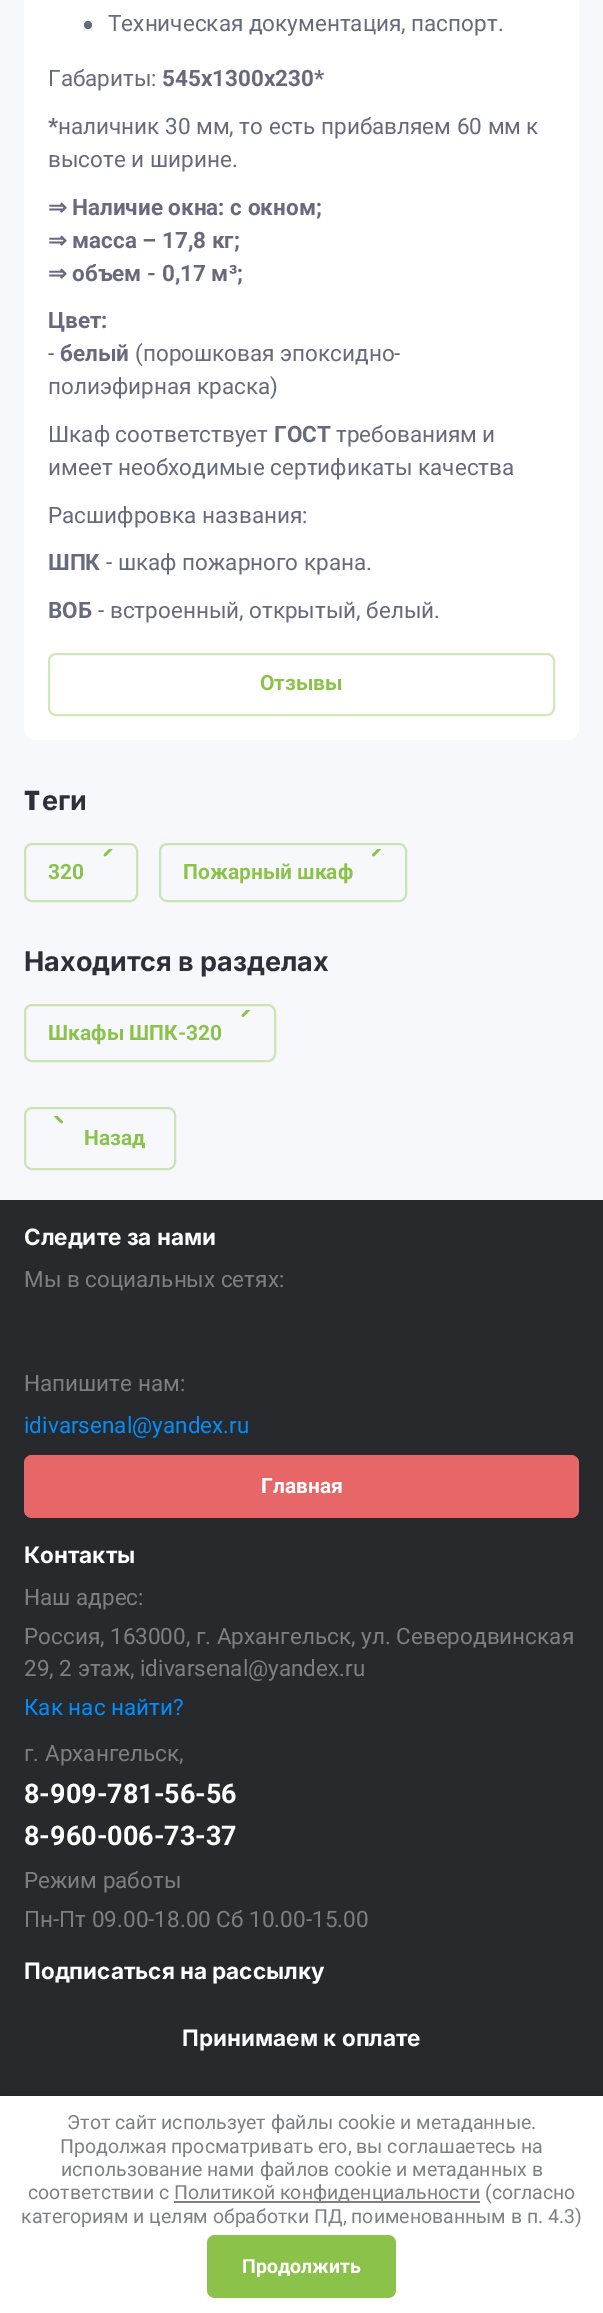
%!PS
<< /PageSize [603 2313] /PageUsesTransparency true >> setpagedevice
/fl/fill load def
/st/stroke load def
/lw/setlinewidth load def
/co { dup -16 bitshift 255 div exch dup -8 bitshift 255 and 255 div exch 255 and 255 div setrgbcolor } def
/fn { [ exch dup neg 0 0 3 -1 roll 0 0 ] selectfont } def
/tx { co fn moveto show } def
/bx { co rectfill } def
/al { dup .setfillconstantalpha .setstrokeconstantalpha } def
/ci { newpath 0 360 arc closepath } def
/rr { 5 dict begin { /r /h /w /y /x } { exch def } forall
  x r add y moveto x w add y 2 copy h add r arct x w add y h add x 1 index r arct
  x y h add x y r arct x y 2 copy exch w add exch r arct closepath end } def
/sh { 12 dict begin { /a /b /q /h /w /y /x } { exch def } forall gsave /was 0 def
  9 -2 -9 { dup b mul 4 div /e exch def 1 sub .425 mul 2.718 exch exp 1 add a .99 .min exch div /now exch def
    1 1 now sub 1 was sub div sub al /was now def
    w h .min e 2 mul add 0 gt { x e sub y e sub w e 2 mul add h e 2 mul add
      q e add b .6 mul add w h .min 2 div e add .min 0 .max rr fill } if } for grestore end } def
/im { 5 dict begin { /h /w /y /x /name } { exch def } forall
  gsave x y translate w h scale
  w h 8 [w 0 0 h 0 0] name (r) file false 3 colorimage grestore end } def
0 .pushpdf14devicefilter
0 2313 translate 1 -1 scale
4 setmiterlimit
0 0 603 2313 16#F7F8FC bx
16#FFFFFF co
24 -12 555 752 12 rr fl
16#67697E co
88 25 4 ci fl
16#D1E7B7 co
2 lw
49 654 505 61 7 rr st
16#CCE3B5 co
25 844 112 57 7 rr st
(media/1.raw) 103 849 10 8 im
160 844 246 57 7 rr st
(media/2.raw) 372 849 9 8 im
25 1005 250 56 7 rr st
(media/3.raw) 241 1010 10 7 im
25 1108 150 61 7 rr st
(media/4.raw) 54 1116 9 8 im
0 1200 603 896 16#27292D bx
16#E76769 co
24 1455 555 63 8 rr fl
16#000000 co
0 2097 603 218 0 7.5 .23 sh
0 2096 603 217 16#FFFFFF bx
174 2201 306 2 16#808080 bx
16#8BC34A co
207 2235 189 63 8 rr fl
(Техническая документация, паспорт.) 108 31 /Roboto-Regular 22.5 16#67697E tx
(Габариты:) 48 86 /Roboto-Regular 22.5 16#67697E tx
(545х1300х230*) 162 86 /Roboto-Bold 22.5 16#67697E tx
(*) 48 134 /Roboto-Bold 22.5 16#67697E tx
(наличник 30 мм, то есть прибавляем 60 мм к) 58 134 /Roboto-Regular 22.5 16#67697E tx
(высоте и ширине.) 48 167 /Roboto-Regular 22.5 16#67697E tx
(⇒) 48 215 /DejaVuSans-Bold 22.5 16#67697E tx
(Наличие окна: с окном;) 72 215 /Roboto-Bold 22.5 16#67697E tx
(⇒) 48 248 /DejaVuSans-Bold 22.5 16#67697E tx
(масса – 17,8 кг;) 72 248 /Roboto-Bold 22.5 16#67697E tx
(⇒) 48 281 /DejaVuSans-Bold 22.5 16#67697E tx
(объем - 0,17 м³;) 72 281 /Roboto-Bold 22.5 16#67697E tx
(Цвет:) 48 328 /Roboto-Bold 22.5 16#67697E tx
(-) 48 361 /Roboto-Regular 22.5 16#67697E tx
(белый) 60 361 /Roboto-Bold 22.5 16#67697E tx
(\(порошковая эпоксидно-) 135 361 /Roboto-Regular 22.5 16#67697E tx
(полиэфирная краска\)) 48 394 /Roboto-Regular 22.5 16#67697E tx
(Шкаф соответствует) 48 442 /Roboto-Regular 22.5 16#67697E tx
(ГОСТ) 274 442 /Roboto-Bold 22.5 16#67697E tx
(требованиям и) 336 442 /Roboto-Regular 22.5 16#67697E tx
(имеет необходимые сертификаты качества) 48 475 /Roboto-Regular 22.5 16#67697E tx
(Расшифровка названия:) 48 523 /Roboto-Regular 22.5 16#67697E tx
(ШПК) 48 570 /Roboto-Bold 22.5 16#67697E tx
(- шкаф пожарного крана.) 106 570 /Roboto-Regular 22.5 16#67697E tx
(ВОБ) 48 618 /Roboto-Bold 22.5 16#67697E tx
(- встроенный, открытый, белый.) 98 618 /Roboto-Regular 22.5 16#67697E tx
(Отзывы) 260 690 /Roboto-Bold 21 16#8BC34A tx
(Т) 24 810 /NotoSans-Black 27 16#2E2F38 tx
(еги) 42 810 /Inter-Bold 27 16#2E2F38 tx
(320) 48 879 /Roboto-Bold 21 16#8BC34A tx
(Пожарный шкаф) 183 879 /Roboto-Bold 21 16#8BC34A tx
(Находится в разделах) 24 971 /Inter-Bold 27 16#2E2F38 tx
(Шкафы ШПК-320) 48 1040 /Roboto-Bold 21 16#8BC34A tx
(Назад) 84 1145 /Roboto-Bold 21 16#8BC34A tx
(Следите за нами) 24 1245 /Inter-Bold 22.5 16#FFFFFF tx
(Мы в социальных сетях:) 24 1287 /Roboto-Regular 22.5 16#7D7F81 tx
(Напишите нам:) 24 1391 /Roboto-Regular 22.5 16#7D7F81 tx
(idivarsenal@yandex.ru) 24 1433 /Roboto-Regular 22.5 16#008EFC tx
(Главная) 261 1493 /Roboto-Bold 21 16#FFFFFF tx
(Контакты) 24 1563 /Inter-Bold 22.5 16#FFFFFF tx
(Наш адрес:) 24 1605 /Roboto-Regular 22.5 16#7D7F81 tx
(Россия, 163000, г. Архангельск, ул. Северодвинская) 24 1644 /Roboto-Regular 22.5 16#7D7F81 tx
(29, 2 этаж, idivarsenal@yandex.ru) 24 1676 /Roboto-Regular 22.5 16#7D7F81 tx
(Как нас найти?) 24 1715 /Roboto-Regular 22.5 16#008EFC tx
(г. Архангельск,) 24 1761 /Roboto-Regular 22.5 16#7D7F81 tx
(8-909-781-56-56) 24 1803 /Roboto-Bold 27 16#FFFFFF tx
(8-960-006-73-37) 24 1845 /Roboto-Bold 27 16#FFFFFF tx
(Режим работы) 24 1888 /Roboto-Regular 22.5 16#7D7F81 tx
(Пн-Пт 09.00-18.00 Сб 10.00-15.00) 24 1927 /Roboto-Regular 22.5 16#7D7F81 tx
(Подписаться на рассылку) 24 1979 /Inter-Bold 22.5 16#FFFFFF tx
(Принимаем к оплате) 182 2046 /Inter-Bold 22.5 16#FFFFFF tx
(Этот сайт использует файлы cookie и метаданные.) 67 2129 /Roboto-Regular 19.5 16#7D7F81 tx
(Продолжая просматривать его, вы соглашаетесь на) 60 2153 /Roboto-Regular 19.5 16#7D7F81 tx
(использование нами файлов cookie и метаданных в) 61 2176 /Roboto-Regular 19.5 16#7D7F81 tx
(соответствии с) 28 2199 /Roboto-Regular 19.5 16#7D7F81 tx
(Политикой конфиденциальности \(согласно) 174 2199 /Roboto-Regular 19.5 16#7D7F81 tx
(категориям и целям обработки ПД, поименованным в п. 4.3\)) 21 2223 /Roboto-Regular 19.5 16#7D7F81 tx
(Продолжить) 242 2273 /Roboto-Bold 19.5 16#FFFFFF tx
.poppdf14devicefilter showpage
